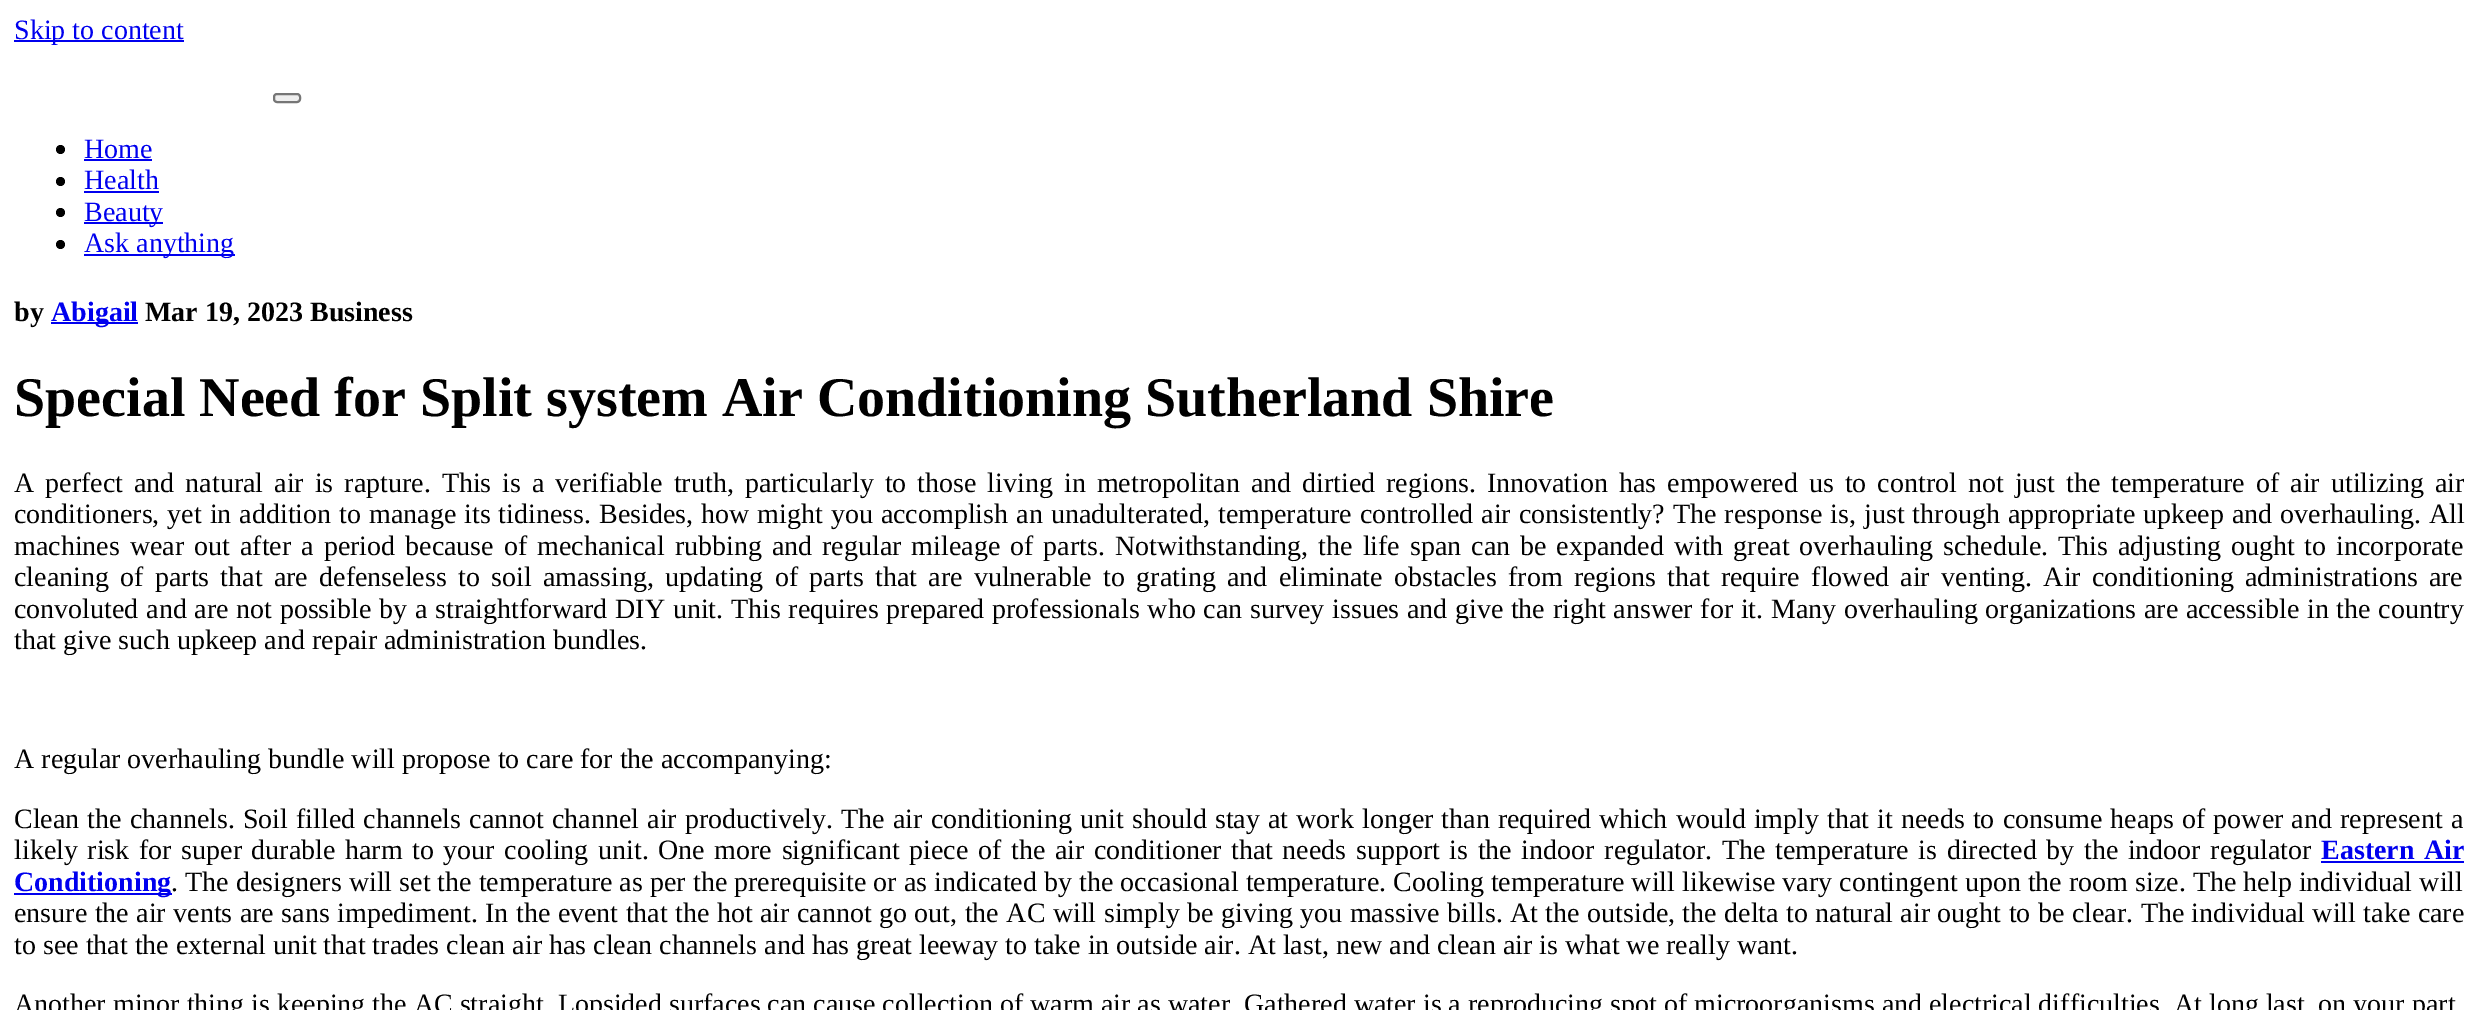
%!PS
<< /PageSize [2477 1010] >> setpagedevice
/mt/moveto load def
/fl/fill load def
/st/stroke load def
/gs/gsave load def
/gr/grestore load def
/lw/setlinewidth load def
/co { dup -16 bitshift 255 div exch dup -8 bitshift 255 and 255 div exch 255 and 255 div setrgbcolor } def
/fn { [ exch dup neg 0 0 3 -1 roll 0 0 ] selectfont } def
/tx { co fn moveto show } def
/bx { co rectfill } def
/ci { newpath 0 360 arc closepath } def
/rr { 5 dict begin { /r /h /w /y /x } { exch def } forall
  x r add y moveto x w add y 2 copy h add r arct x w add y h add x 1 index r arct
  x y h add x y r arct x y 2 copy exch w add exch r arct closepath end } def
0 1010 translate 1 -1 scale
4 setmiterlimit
0 0 2477 1010 16#FFFFFF bx
14 40 170 2 16#0000EE bx
16#EFEFEF co
274 94 26 8 3 rr gs fl gr
16#767676 co
2 lw
st
16#000000 co
60.5 149.5 4.5 ci fl
84 159 68 2 16#0000EE bx
16#000000 co
60.5 181.5 4.5 ci fl
84 191 75 2 16#0000EE bx
16#000000 co
60.5 212.5 4.5 ci fl
84 222 79 2 16#0000EE bx
16#000000 co
60.5 244.5 4.5 ci fl
84 254 151 2 16#0000EE bx
51 322 87 2 16#0000EE bx
2321 861 143 2 16#0000EE bx
14 893 158 2 16#0000EE bx
(Skip to content) 14 39 /LiberationSerif-Regular 28 16#0000EE tx
(Home) 84 158 /LiberationSerif-Regular 28 16#0000EE tx
(Health) 84 189 /LiberationSerif-Regular 28 16#0000EE tx
(Beauty) 84 221 /LiberationSerif-Regular 28 16#0000EE tx
(Ask anything) 84 252 /LiberationSerif-Regular 28 16#0000EE tx
(by) 14 321 /LiberationSerif-Bold 28 16#000000 tx
(Abigail) 51 321 /LiberationSerif-Bold 28 16#0000EE tx
(Mar 19, 2023 Business) 145 321 /LiberationSerif-Bold 28 16#000000 tx
(Special Need for Split system Air Conditioning Sutherland Shire) 14 416 /LiberationSerif-Bold 56 16#000000 tx
/LiberationSerif-Regular 28 fn
14 492 mt 4 0 32 (A perfect and natural air is rapture. This is a verifiable truth, particularly to those living in metropolitan and dirtied regions. Innovation has empowered us to control not just the temperature of air utilizing air) widthshow
14 523 mt 1 0 32 (conditioners, yet in addition to manage its tidiness. Besides, how might you accomplish an unadulterated, temperature controlled air consistently? The response is, just through appropriate upkeep and overhauling. All) widthshow
14 555 mt 3 0 32 (machines wear out after a period because of mechanical rubbing and regular mileage of parts. Notwithstanding, the life span can be expanded with great overhauling schedule. This adjusting ought to incorporate) widthshow
14 586 mt 4.3 0 32 (cleaning of parts that are defenseless to soil amassing, updating of parts that are vulnerable to grating and eliminate obstacles from regions that require flowed air venting. Air conditioning administrations are) widthshow
14 618 mt .7 0 32 (convoluted and are not possible by a straightforward DIY unit. This requires prepared professionals who can survey issues and give the right answer for it. Many overhauling organizations are accessible in the country) widthshow
(that give such upkeep and repair administration bundles.) 14 649 /LiberationSerif-Regular 28 16#000000 tx
(A regular overhauling bundle will propose to care for the accompanying:) 14 768 /LiberationSerif-Regular 28 16#000000 tx
14 828 mt 1.1 0 32 (Clean the channels. Soil filled channels cannot channel air productively. The air conditioning unit should stay at work longer than required which would imply that it needs to consume heaps of power and represent a) widthshow
14 859 mt 2.6 0 32 (likely risk for super durable harm to your cooling unit. One more significant piece of the air conditioner that needs support is the indoor regulator. The temperature is directed by the indoor regulator) widthshow
/LiberationSerif-Bold 28 fn
16#0000EE co
2321 859 mt 2.6 0 32 (Eastern Air) widthshow
(Conditioning) 14 891 /LiberationSerif-Bold 28 16#0000EE tx
/LiberationSerif-Regular 28 fn
16#000000 co
171 891 mt .1 0 32 (. The designers will set the temperature as per the prerequisite or as indicated by the occasional temperature. Cooling temperature will likewise vary contingent upon the room size. The help individual will) widthshow
14 922 mt .45 0 32 (ensure the air vents are sans impediment. In the event that the hot air cannot go out, the AC will simply be giving you massive bills. At the outside, the delta to natural air ought to be clear. The individual will take care) widthshow
(to see that the external unit that trades clean air has clean channels and has great leeway to take in outside air. At last, new and clean air is what we really want.) 14 954 /LiberationSerif-Regular 28 16#000000 tx
(Another minor thing is keeping the AC straight. Lopsided surfaces can cause collection of warm air as water. Gathered water is a reproducing spot of microorganisms and electrical difficulties. At long last, on your part) 14 1013 /LiberationSerif-Regular 28 16#000000 tx
showpage
